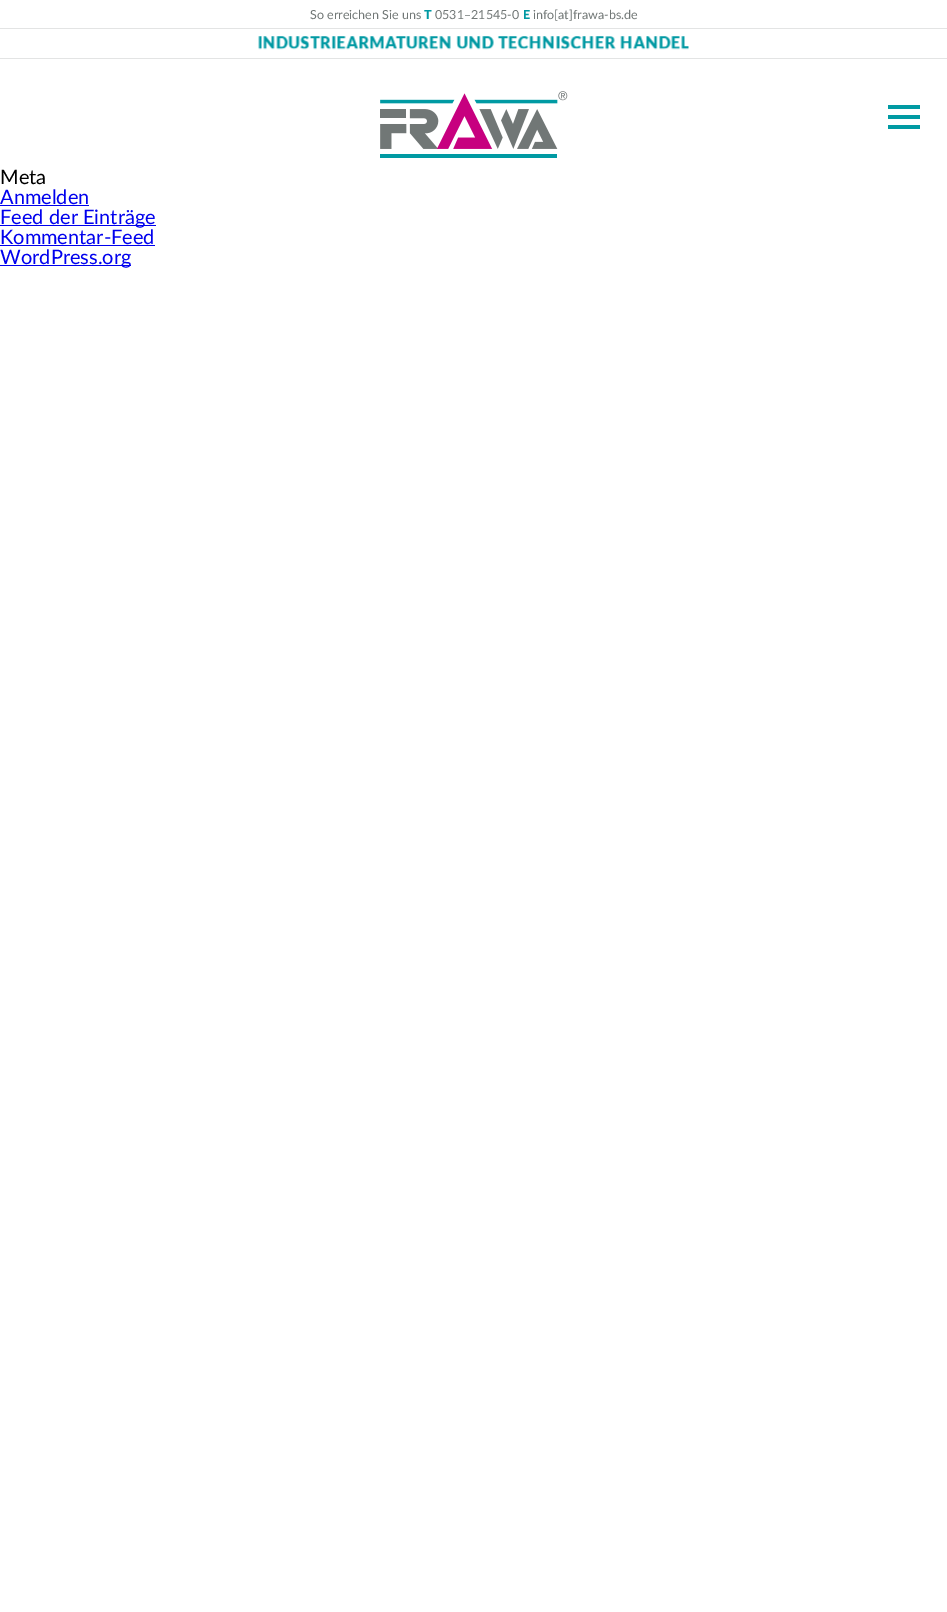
%!PS
<< /PageSize [947 1612] >> setpagedevice
/co { dup -16 bitshift 255 div exch dup -8 bitshift 255 and 255 div exch 255 and 255 div setrgbcolor } def
/fn { [ exch dup neg 0 0 3 -1 roll 0 0 ] selectfont } def
/tx { co fn moveto show } def
/bx { co rectfill } def
/im { 5 dict begin { /h /w /y /x /name } { exch def } forall
  gsave x y translate w h scale
  w h 8 [w 0 0 h 0 0] name (r) file false 3 colorimage grestore end } def
0 1612 translate 1 -1 scale
4 setmiterlimit
0 0 947 1612 16#FFFFFF bx
0 28 947 1 16#E3E4E4 bx
0 58 947 1 16#E3E4E4 bx
(media/1.raw) 258 36 431 14 im
(media/2.raw) 380 91 188 67 im
888 105 32 4 16#009AA3 bx
888 115 32 4 16#009AA3 bx
888 125 32 4 16#009AA3 bx
0 205 89 1 16#0000EE bx
0 225 156 1 16#0000EE bx
0 245 155 1 16#0000EE bx
0 265 131 1 16#0000EE bx
(So erreichen Sie uns) 310 19 /Lato-Regular 12.5 16#717776 tx
(T) 424 19 /Lato-Black 12.5 16#0099A3 tx
(0531–21545-0) 435 19 /Lato-Regular 12.5 16#717776 tx
(E) 523 19 /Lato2-Black 12.5 16#0099A3 tx
(info[at]frawa-bs.de) 533 19 /Lato-Regular 12.5 16#717776 tx
(Meta) 0 184 /Lato-Regular 20 16#000000 tx
(Anmelden) 0 204 /Lato-Regular 20 16#0000EE tx
(Feed der Einträge) 0 224 /Lato-Regular 20 16#0000EE tx
(Kommentar-Feed) 0 244 /Lato-Regular 20 16#0000EE tx
(WordPress.org) 0 264 /Lato-Regular 20 16#0000EE tx
showpage
